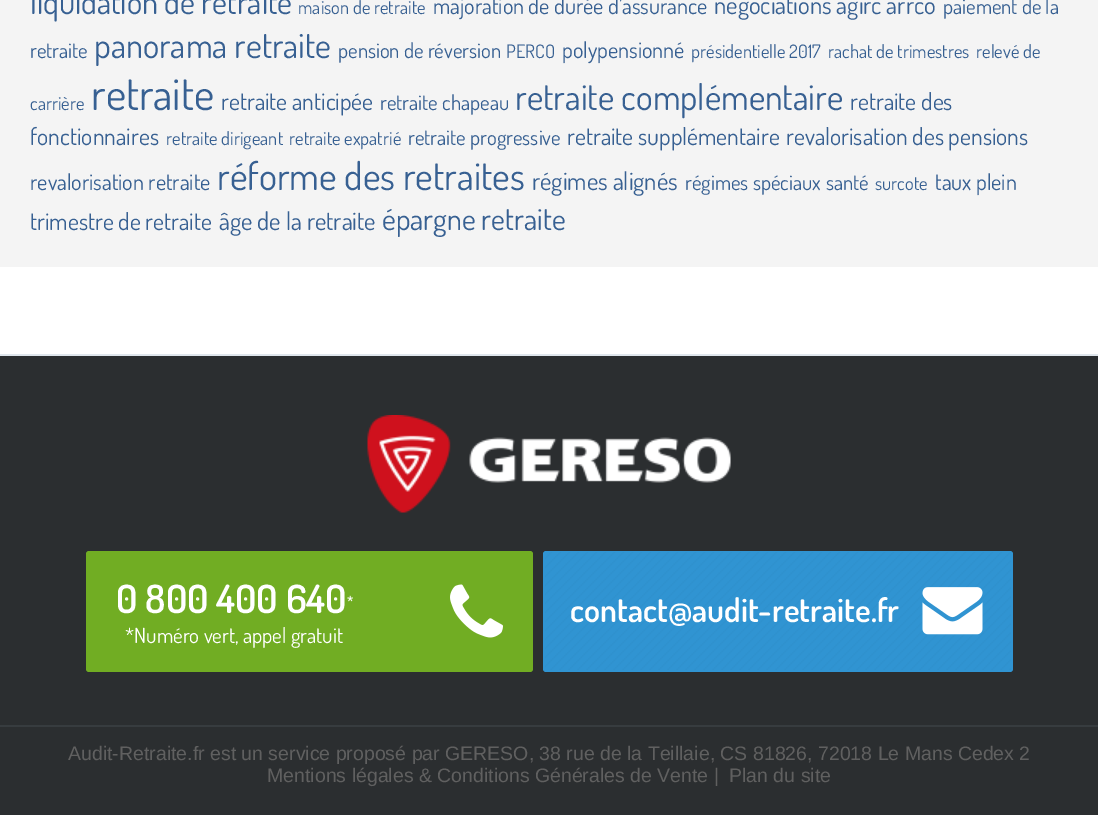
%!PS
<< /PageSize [1098 815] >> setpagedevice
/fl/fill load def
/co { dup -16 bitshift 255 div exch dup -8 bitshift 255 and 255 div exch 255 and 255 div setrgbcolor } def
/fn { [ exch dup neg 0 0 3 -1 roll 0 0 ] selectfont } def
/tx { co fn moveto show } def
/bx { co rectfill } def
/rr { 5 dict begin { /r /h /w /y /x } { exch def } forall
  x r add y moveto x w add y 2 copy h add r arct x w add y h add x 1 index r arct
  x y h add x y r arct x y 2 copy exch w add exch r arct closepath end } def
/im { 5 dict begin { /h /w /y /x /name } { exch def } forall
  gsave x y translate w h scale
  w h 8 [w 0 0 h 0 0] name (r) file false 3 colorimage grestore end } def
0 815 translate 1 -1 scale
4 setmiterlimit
0 0 1098 815 16#FFFFFF bx
0 354 1098 2 16#DFE6EC bx
0 0 1098 267 16#F4F4F4 bx
0 356 1098 459 16#2B2E30 bx
(media/1.raw) 367 415 364 98 im
16#71AD23 co
86 551 447 121 3 rr fl
(media/2.raw) 450 584 53 54 im
16#3094D2 co
543 551 470 121 3 rr fl
(media/3.raw) 545 552 466 118 im
(media/4.raw) 922 587 61 48 im
0 725 1098 2 16#373C3F bx
(liquidation de retraite) 30 14 /Dosis-Regular 32.5 16#376092 tx
(maison de retraite) 298 14 /Dosis-Regular 18.5 16#376092 tx
(majoration de durée d’assurance) 433 14 /Dosis-Regular 22.25 16#376092 tx
(négociations agirc arrco) 714 14 /Dosis-Regular 24.75 16#376092 tx
(paiement de la) 943 14 /Dosis-Regular 20.75 16#376092 tx
(retraite) 30 58 /Dosis-Regular 20.75 16#376092 tx
(panorama retraite) 94 58 /Dosis-Regular 34.5 16#376092 tx
(pension de réversion) 338 58 /Dosis-Regular 20.75 16#376092 tx
(PERCO) 506 58 /Dosis-Regular 18.5 16#376092 tx
(polypensionné) 562 58 /Dosis-Regular 22.25 16#376092 tx
(présidentielle 2017) 691 58 /Dosis-Regular 18.5 16#376092 tx
(rachat de trimestres) 828 58 /Dosis-Regular 18.5 16#376092 tx
(relevé de) 976 58 /Dosis-Regular 18.5 16#376092 tx
(carrière) 30 110 /Dosis-Regular 18.5 16#376092 tx
(retraite) 91 110 /Dosis-Regular 44 16#376092 tx
(retraite anticipée) 221 110 /Dosis-Regular 23.75 16#376092 tx
(retraite chapeau) 380 110 /Dosis-Regular 20.75 16#376092 tx
(retraite complémentaire) 515 110 /Dosis-Regular 35.5 16#376092 tx
(retraite des) 850 110 /Dosis-Regular 23.75 16#376092 tx
(fonctionnaires) 30 145 /Dosis-Regular 23.75 16#376092 tx
(retraite dirigeant) 166 145 /Dosis-Regular 18.5 16#376092 tx
(retraite expatrié) 289 145 /Dosis-Regular 18.5 16#376092 tx
(retraite progressive) 408 145 /Dosis-Regular 20.75 16#376092 tx
(retraite supplémentaire) 567 145 /Dosis-Regular 23.75 16#376092 tx
(revalorisation des pensions) 786 145 /Dosis-Regular 23.75 16#376092 tx
(revalorisation retraite) 30 190 /Dosis-Regular 22.25 16#376092 tx
(réforme des retraites) 217 190 /Dosis-Regular 38.25 16#376092 tx
(régimes alignés) 532 190 /Dosis-Regular 24.75 16#376092 tx
(régimes spéciaux) 685 190 /Dosis-Regular 20.75 16#376092 tx
(santé) 826 190 /Dosis-Regular 20.75 16#376092 tx
(surcote) 875 190 /Dosis-Regular 18.5 16#376092 tx
(taux plein) 935 190 /Dosis-Regular 22.25 16#376092 tx
(trimestre de retraite) 30 230 /Dosis-Regular 23.75 16#376092 tx
(âge de la retraite) 219 230 /Dosis-Regular 24.75 16#376092 tx
(épargne retraite) 382 230 /Dosis-Regular 30 16#376092 tx
(0 800 400 640) 116 613 /Dosis-SemiBold 39 16#FFFFFF tx
(*) 347 606 /Dosis-SemiBold 14 16#FFFFFF tx
(*Numéro vert, appel gratuit) 125 643 /Dosis-Regular 21 16#FFFFFF tx
(contact@audit-retraite.fr) 570 622 /Dosis-SemiBold 33 16#FFFFFF tx
(Audit-Retraite.fr est un service proposé par GERESO, 38 rue de la Teillaie, CS 81826, 72018 Le Mans Cedex 2) 68 760 /LiberationSans-Regular 19.5 16#606060 tx
(Mentions légales & Conditions Générales de Vente |) 267 782 /LiberationSans-Regular 19.5 16#606060 tx
(Plan du site) 729 782 /LiberationSans-Regular 19.5 16#606060 tx
showpage
